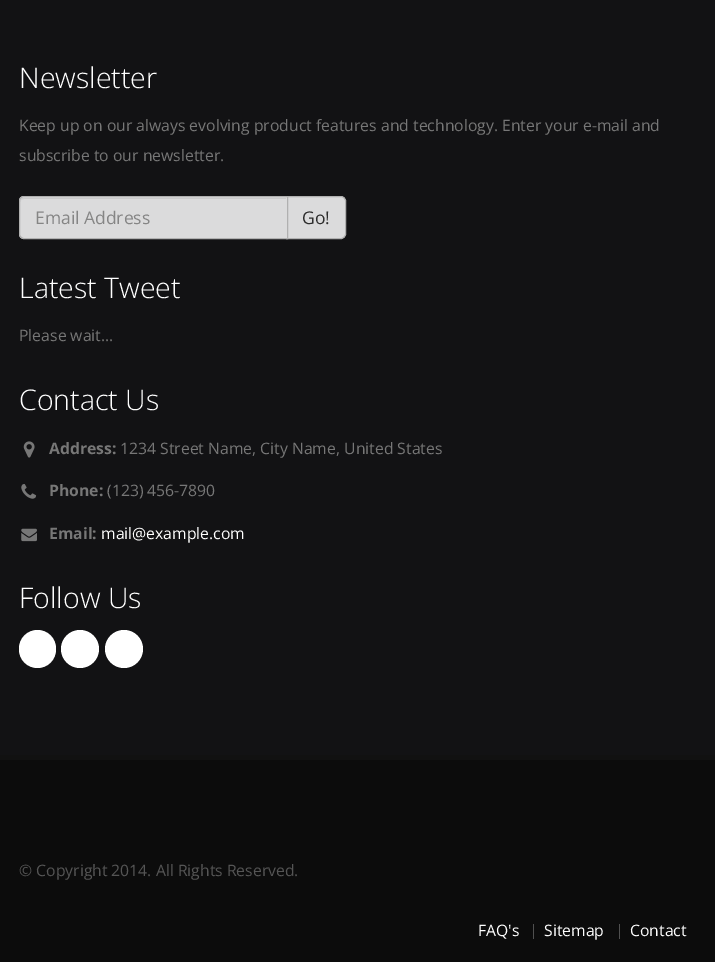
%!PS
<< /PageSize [715 962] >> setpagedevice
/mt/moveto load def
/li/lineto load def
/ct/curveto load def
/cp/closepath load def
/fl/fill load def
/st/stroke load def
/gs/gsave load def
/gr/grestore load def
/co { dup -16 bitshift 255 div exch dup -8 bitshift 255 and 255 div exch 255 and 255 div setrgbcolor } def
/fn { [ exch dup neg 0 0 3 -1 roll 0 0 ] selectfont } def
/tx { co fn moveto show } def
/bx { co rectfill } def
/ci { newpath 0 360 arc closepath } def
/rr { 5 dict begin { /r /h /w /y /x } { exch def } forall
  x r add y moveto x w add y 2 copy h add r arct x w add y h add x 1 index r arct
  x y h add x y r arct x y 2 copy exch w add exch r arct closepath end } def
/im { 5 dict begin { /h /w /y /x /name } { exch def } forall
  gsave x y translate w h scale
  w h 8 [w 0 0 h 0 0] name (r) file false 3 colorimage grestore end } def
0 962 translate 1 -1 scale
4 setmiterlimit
0 0 715 962 16#121214 bx
16#DBDBDC co
286.5 196.5 mt 341 196.5 li 343.5 196.5 345.5 198.5 345.5 201 ct 345.5 234 li 345.5 236.5 343.5 238.5 341 238.5 ct 286.5 238.5 li cp gs fl gr
16#B0B0B0 co
st
16#DBDBDC co
24 196 mt 288 196 li 288 239 li 24 239 li 21 239 19 237 19 234 ct 19 201 li 19 198 21 196 24 196 ct cp fl
16#CBCBCC co
24 199 mt 286 199 li 286 198 li 22 198 li 21 200 li 20 202 li 20 200 22 199 24 199 ct cp fl
16#B0B0B0 co
24 196.5 mt 287.5 196.5 li 287.5 238.5 li 24 238.5 li 21.5 238.5 19.5 236.5 19.5 234 ct 19.5 201 li 19.5 198.5 21.5 196.5 24 196.5 ct cp st
(media/1.raw) 23 441 12 17 im
(media/2.raw) 21 484 16 15 im
(media/3.raw) 21 528 16 14 im
16#FFFFFF co
19 630 37 38 18.5 rr fl
80 649 19 ci fl
124 649 19 ci fl
0 760 715 202 16#0C0C0C bx
0 755 715 5 16#111111 bx
533 924 1 15 16#505050 bx
619 924 1 15 16#505050 bx
(Newsletter) 19 88 /OpenSans-Light 28.5 16#FFFFFF tx
(Keep up on our always evolving product features and technology. Enter your e-mail and) 19 131 /OpenSans-Regular 15.75 16#777777 tx
(subscribe to our newsletter.) 19 161 /OpenSans-Regular 15.75 16#777777 tx
(Email Address) 35 224 /OpenSans-Regular 17.5 16#858585 tx
(Go!) 302 224 /OpenSans-Regular 17.5 16#2E2E2E tx
(Latest Tweet) 19 298 /OpenSans-Light 28.5 16#FFFFFF tx
(Please wait...) 19 341 /OpenSans-Regular 15.75 16#777777 tx
(Contact Us) 19 410 /OpenSans-Light 28.5 16#FFFFFF tx
(Address:) 49 454 /OpenSans-Bold 15.75 16#777777 tx
(1234 Street Name, City Name, United States) 120 454 /OpenSans-Regular 15.75 16#777777 tx
(Phone:) 49 496 /OpenSans-Bold 15.75 16#777777 tx
(\(123\) 456-7890) 107 496 /OpenSans-Regular 15.75 16#777777 tx
(Email:) 49 539 /OpenSans-Bold 15.75 16#777777 tx
(mail@example.com) 101 539 /OpenSans-Regular 15.75 16#FFFFFF tx
(Follow Us) 19 608 /OpenSans-Light 28.5 16#FFFFFF tx
(© Copyright 2014. All Rights Reserved.) 19 876 /OpenSans-Regular 15.75 16#555555 tx
(FAQ's) 478 936 /OpenSans-Regular 15.75 16#FFFFFF tx
(Sitemap) 544 936 /OpenSans-Regular 15.75 16#FFFFFF tx
(Contact) 630 936 /OpenSans-Regular 15.75 16#FFFFFF tx
showpage
